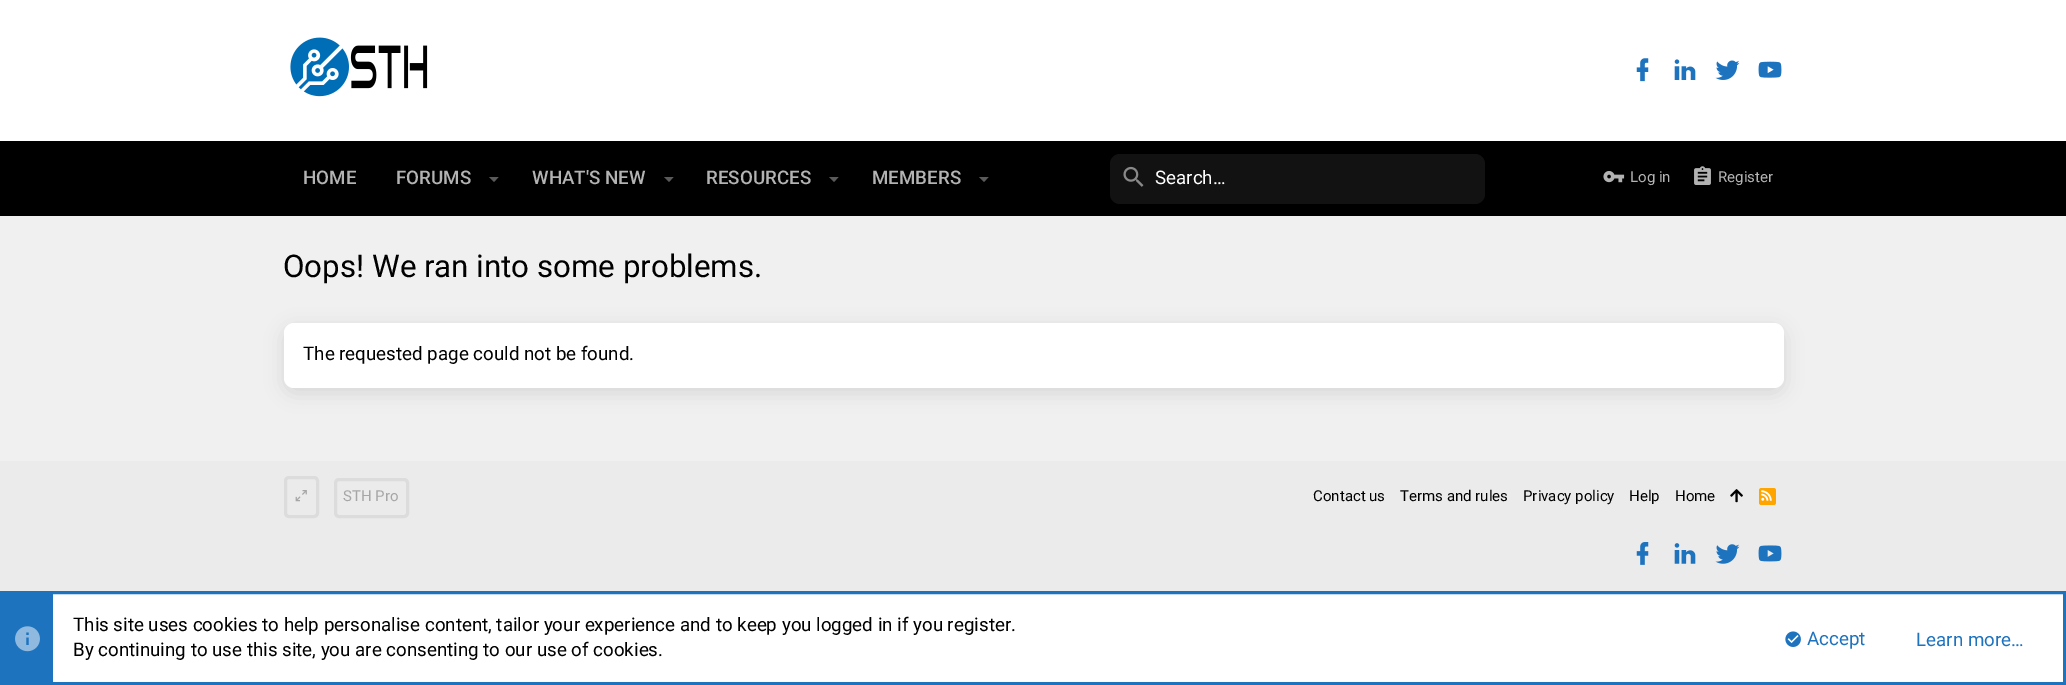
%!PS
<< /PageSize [2066 685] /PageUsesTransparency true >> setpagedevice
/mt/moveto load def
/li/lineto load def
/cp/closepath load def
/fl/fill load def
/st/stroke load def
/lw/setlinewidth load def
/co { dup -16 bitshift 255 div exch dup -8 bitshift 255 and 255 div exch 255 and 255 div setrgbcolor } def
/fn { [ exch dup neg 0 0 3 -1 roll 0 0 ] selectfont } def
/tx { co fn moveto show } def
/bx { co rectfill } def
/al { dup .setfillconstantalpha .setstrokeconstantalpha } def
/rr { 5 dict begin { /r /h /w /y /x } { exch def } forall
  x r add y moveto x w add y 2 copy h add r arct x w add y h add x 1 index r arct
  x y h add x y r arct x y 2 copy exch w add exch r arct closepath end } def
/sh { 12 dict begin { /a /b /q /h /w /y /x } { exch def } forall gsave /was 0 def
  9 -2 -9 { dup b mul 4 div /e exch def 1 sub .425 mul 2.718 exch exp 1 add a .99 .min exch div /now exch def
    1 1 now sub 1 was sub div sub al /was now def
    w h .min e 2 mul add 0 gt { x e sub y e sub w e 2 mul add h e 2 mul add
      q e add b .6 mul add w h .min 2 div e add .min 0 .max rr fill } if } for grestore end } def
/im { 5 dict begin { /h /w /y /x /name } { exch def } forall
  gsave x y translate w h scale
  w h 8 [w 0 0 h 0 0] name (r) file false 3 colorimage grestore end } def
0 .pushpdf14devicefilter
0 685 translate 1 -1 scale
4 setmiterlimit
0 0 2066 685 16#F0F0F0 bx
0 0 2066 141 16#FFFFFF bx
(media/1.raw) 290 37 138 60 im
(media/2.raw) 1636 58 13 24 im
(media/3.raw) 1674 59 22 21 im
(media/4.raw) 1715 60 25 20 im
(media/5.raw) 1758 61 24 17 im
0 141 2066 75 16#000000 bx
16#5A5A5A co
489 177 mt 494 182 li 498.5 177 li cp fl
664 177 mt 669 182 li 673.5 177 li cp fl
829 177 mt 834 182 li 838.5 177 li cp fl
979 177 mt 984 182 li 988.5 177 li cp fl
16#121212 co
1110 154 375 50 10 rr fl
(media/6.raw) 1123 166 21 21 im
(media/7.raw) 1603 171 22 12 im
(media/8.raw) 1694 166 17 19 im
16#717171 co
284 328 1500 65 10 9.5 .2 sh
16#FFFFFF co
284 323 1500 65 10 rr fl
0 461 2066 130 16#EBEBEB bx
16#DCDCDC co
3 lw
285.5 477.5 32 39 3.5 rr st
(media/9.raw) 295 490 12 12 im
335.5 479.5 72 37 3.5 rr st
(media/10.raw) 1730 489 13 14 im
16#FFA500 co
1759 488 17 17 2.5 rr fl
(media/11.raw) 1761 490 11 11 im
(media/12.raw) 1636 542 13 23 im
(media/13.raw) 1674 543 22 21 im
(media/14.raw) 1715 544 25 20 im
(media/15.raw) 1758 545 24 17 im
53 594 2010 88 16#FFFFFF bx
16#1E73BE co
1.5 592.5 2063 91 rectstroke
3 594 50 88 16#1E73BE bx
(media/16.raw) 15 626 25 26 im
(media/17.raw) 1785 631 16 16 im
(HOME) 303 184 /Roboto-Medium 18.75 16#B3B3B3 tx
(FORUMS) 396 184 /Roboto-Medium 18.75 16#B3B3B3 tx
(WHAT'S NEW) 532 184 /Roboto-Medium 18.75 16#B3B3B3 tx
(RESOURCES) 706 184 /Roboto-Medium 18.75 16#B3B3B3 tx
(MEMBERS) 872 184 /Roboto-Medium 18.75 16#B3B3B3 tx
(Search…) 1155 184 /Roboto-Regular 18.75 16#FFFFFF tx
(Log in) 1630 182 /Roboto-Regular 15 16#B3B3B3 tx
(Register) 1718 182 /Roboto-Regular 15 16#B3B3B3 tx
(Oops! We ran into some problems.) 283 277 /Roboto-Regular 31.25 16#000000 tx
(The requested page could not be found.) 303 360 /Roboto-Regular 18.75 16#000000 tx
(STH Pro) 343 501 /Roboto-Regular 15 16#A6A6A6 tx
(Contact us) 1313 501 /Roboto-Regular 15 16#000000 tx
(Terms and rules) 1400 501 /Roboto-Regular 15 16#000000 tx
(Privacy policy) 1523 501 /Roboto-Regular 15 16#000000 tx
(Help) 1629 501 /Roboto-Regular 15 16#000000 tx
(Home) 1675 501 /Roboto-Regular 15 16#000000 tx
(This site uses cookies to help personalise content, tailor your experience and to keep you logged in if you register.) 73 631 /Roboto-Regular 18.75 16#000000 tx
(By continuing to use this site, you are consenting to our use of cookies.) 73 656 /Roboto-Regular 18.75 16#000000 tx
(Accept) 1807 645 /Roboto-Regular 18.75 16#1E73BE tx
(Learn more…) 1916 646 /Roboto-Regular 18.75 16#1E73BE tx
.poppdf14devicefilter showpage
